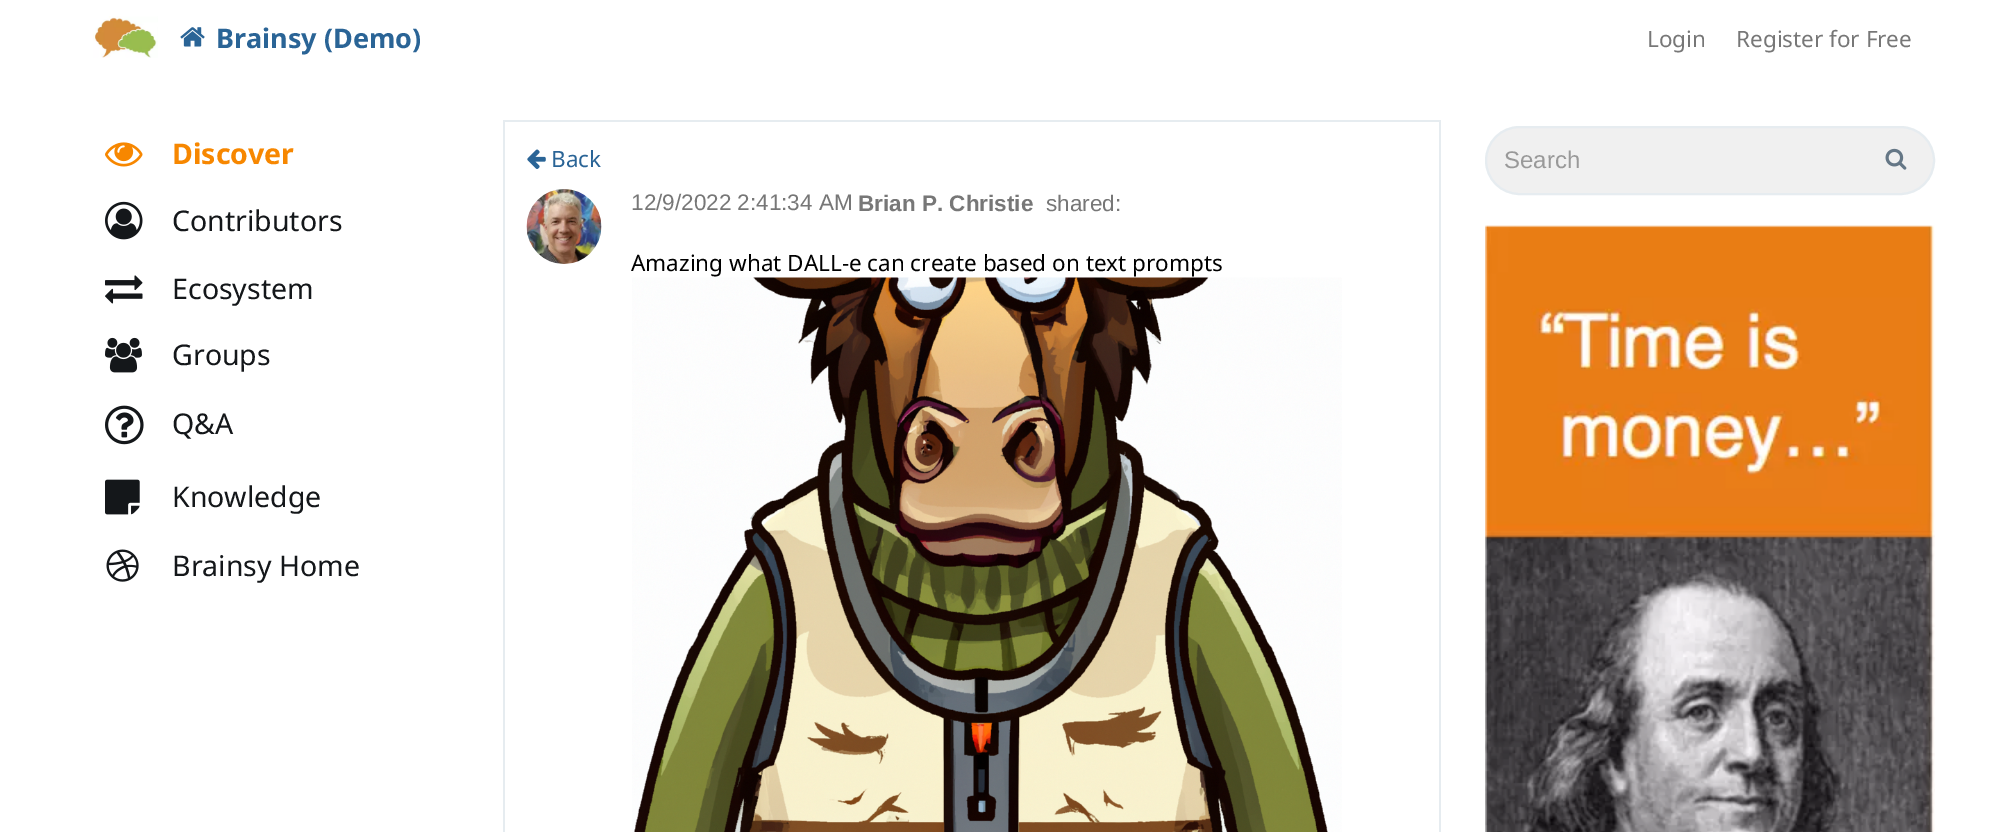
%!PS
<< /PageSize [2015 832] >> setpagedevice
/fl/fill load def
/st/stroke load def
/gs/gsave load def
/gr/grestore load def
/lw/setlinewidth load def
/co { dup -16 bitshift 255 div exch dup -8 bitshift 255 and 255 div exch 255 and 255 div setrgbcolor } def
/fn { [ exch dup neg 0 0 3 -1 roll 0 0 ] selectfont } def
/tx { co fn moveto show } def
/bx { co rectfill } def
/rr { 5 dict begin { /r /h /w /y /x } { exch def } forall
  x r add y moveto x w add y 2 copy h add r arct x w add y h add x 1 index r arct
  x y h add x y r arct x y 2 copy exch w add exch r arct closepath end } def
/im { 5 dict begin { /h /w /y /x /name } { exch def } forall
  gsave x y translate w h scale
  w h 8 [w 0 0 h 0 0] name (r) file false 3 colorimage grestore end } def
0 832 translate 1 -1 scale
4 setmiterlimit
0 0 2015 832 16#FFFFFF bx
(media/1.raw) 93 16 65 42 im
(media/2.raw) 180 27 25 20 im
(media/3.raw) 105 142 38 25 im
(media/4.raw) 105 201 38 39 im
(media/5.raw) 105 275 38 29 im
(media/6.raw) 105 337 37 36 im
(media/7.raw) 105 405 39 40 im
(media/8.raw) 105 479 35 36 im
(media/9.raw) 106 549 33 33 im
503 120 937 2 16#E6ECF0 bx
1439 120 2 712 16#E6ECF0 bx
503 120 2 712 16#E6ECF0 bx
(media/10.raw) 527 149 19 20 im
(media/11.raw) 526 189 76 75 im
(media/12.raw) 632 277 710 555 im
16#F0F0F0 co
1486 127 448 67 33.5 rr gs fl gr
16#E6ECF0 co
2 lw
st
(media/13.raw) 1885 148 22 22 im
(media/14.raw) 1485 225 450 607 im
(Brainsy \(Demo\)) 216 48 /NotoSans-Bold 27 16#2A6496 tx
(Login) 1647 47 /NotoSans-Regular 22.5 16#777777 tx
(Register for Free) 1736 47 /NotoSans-Regular 22.5 16#777777 tx
(Discover) 172 164 /NotoSans-Bold 28.5 16#F78700 tx
(Contributors) 172 231 /NotoSans-Regular 28.5 16#14171A tx
(Ecosystem) 172 299 /NotoSans-Regular 28.5 16#14171A tx
(Groups) 172 365 /NotoSans-Regular 28.5 16#14171A tx
(Q&A) 172 434 /NotoSans-Regular 28.5 16#14171A tx
(Knowledge) 172 507 /NotoSans-Regular 28.5 16#14171A tx
(Brainsy Home) 172 576 /NotoSans-Regular 28.5 16#14171A tx
(Back) 551 167 /NotoSans-Regular 22.5 16#2A6496 tx
(12/9/2022 2:41:34 AM) 631 210 /LiberationSans-Regular 22.5 16#777777 tx
(Brian P. Christie) 858 211 /LiberationSans-Bold 22.5 16#777777 tx
(shared:) 1046 211 /LiberationSans-Regular 22.5 16#777777 tx
(Amazing what DALL-e can create based on text prompts) 631 271 /NotoSans-Regular 22.5 16#000000 tx
(Search) 1504 168 /LiberationSans-Regular 24 16#999999 tx
showpage
